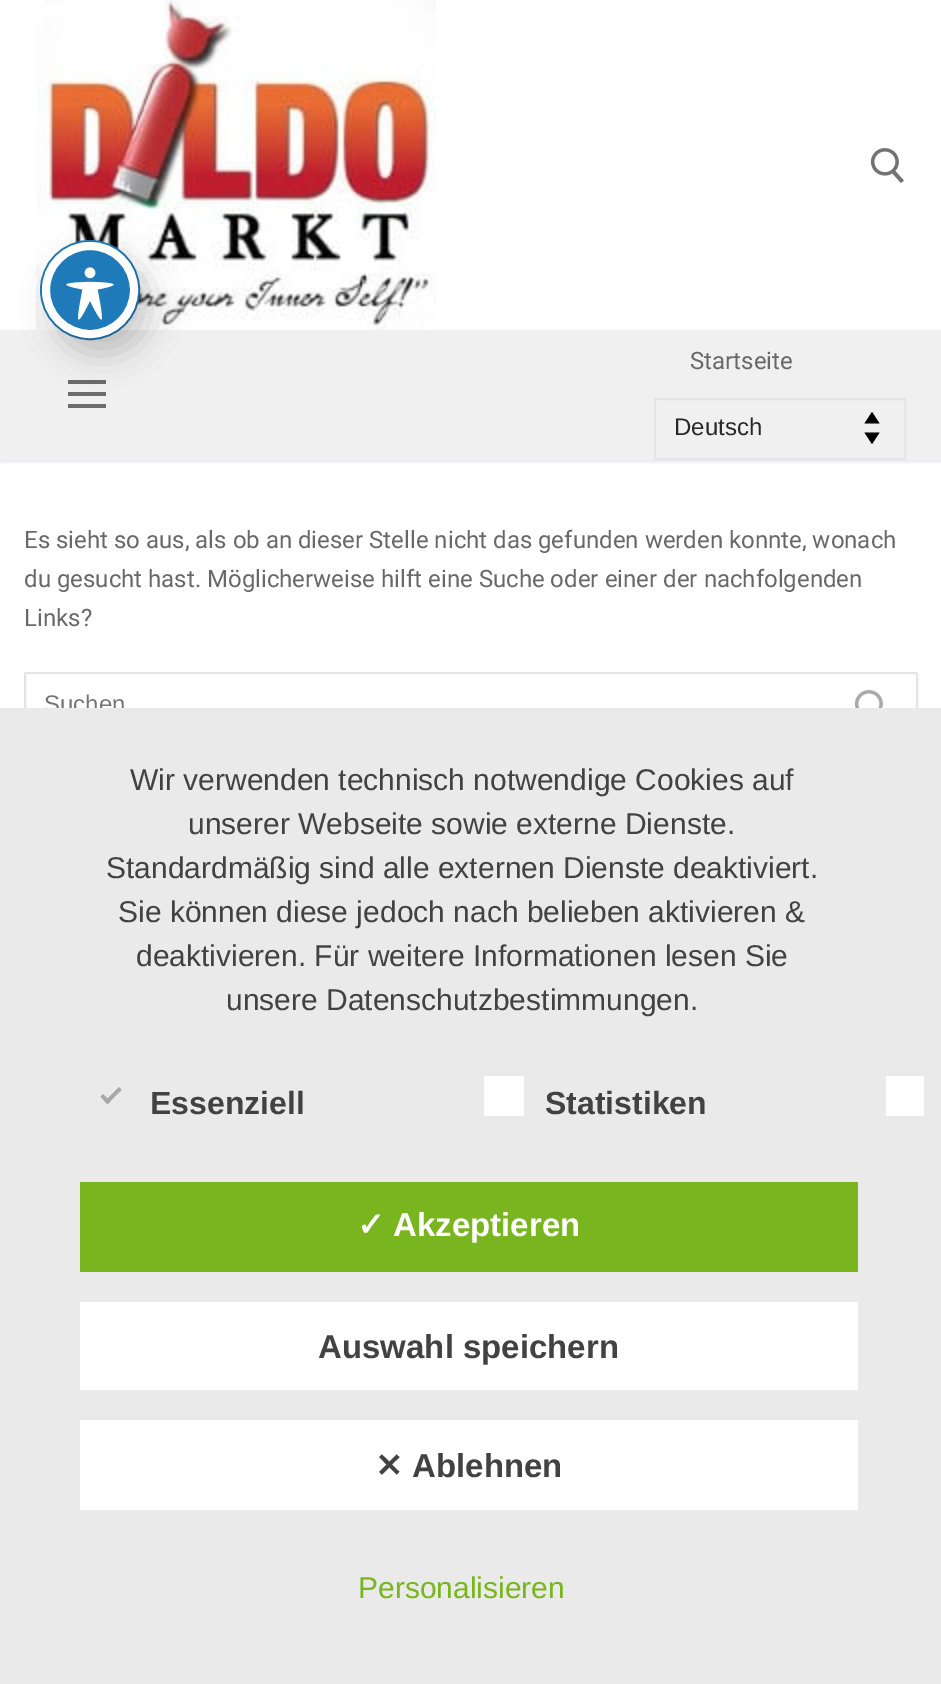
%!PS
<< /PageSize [941 1684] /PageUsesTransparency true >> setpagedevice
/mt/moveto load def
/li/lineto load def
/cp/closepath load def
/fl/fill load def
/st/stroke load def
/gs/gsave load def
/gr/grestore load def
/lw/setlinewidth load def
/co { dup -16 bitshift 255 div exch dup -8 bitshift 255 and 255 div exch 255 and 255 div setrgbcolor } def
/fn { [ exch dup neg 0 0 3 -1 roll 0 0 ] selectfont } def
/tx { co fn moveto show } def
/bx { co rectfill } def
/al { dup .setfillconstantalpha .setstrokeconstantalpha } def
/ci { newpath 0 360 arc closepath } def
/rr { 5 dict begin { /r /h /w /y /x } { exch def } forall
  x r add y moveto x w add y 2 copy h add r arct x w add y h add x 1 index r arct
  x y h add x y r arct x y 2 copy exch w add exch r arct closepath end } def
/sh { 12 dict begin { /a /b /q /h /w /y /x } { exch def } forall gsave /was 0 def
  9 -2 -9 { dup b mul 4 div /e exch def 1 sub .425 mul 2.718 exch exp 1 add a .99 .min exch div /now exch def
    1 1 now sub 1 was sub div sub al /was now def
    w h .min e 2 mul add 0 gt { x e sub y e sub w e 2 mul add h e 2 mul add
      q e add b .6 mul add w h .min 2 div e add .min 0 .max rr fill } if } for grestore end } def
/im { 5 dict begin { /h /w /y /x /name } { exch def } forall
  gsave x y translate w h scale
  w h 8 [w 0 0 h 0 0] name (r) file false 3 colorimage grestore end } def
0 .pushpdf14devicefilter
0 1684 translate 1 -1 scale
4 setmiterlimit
0 0 941 1684 16#FFFFFF bx
16#E1E5EA co
0 332 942 130 0 2 1 sh
(media/2.raw) 36 0 400 330 im
0 330 941 130 16#F0F0F0 bx
16#1E7AB9 co
2 lw
90 290 49 ci st
68 392 38 4 16#6C6C6C bx
68 380 38 4 16#6C6C6C bx
16#000000 co
54 258 96 96 48 16 .2 sh
16#1E7AB9 co
90 290 44 ci gs fl gr
16#FFFFFF co
8 lw
st
(media/1.raw) 66 267 48 53 im
(media/3.raw) 870 148 34 35 im
68 404 38 4 16#6C6C6C bx
16#000000 co
872 412 mt 864.5 423.5 li 879.5 423.5 li cp 872 444 mt 879.5 432.5 li 864.5 432.5 li cp fl
16#E5E5E5 co
2 lw
655 399 250 60 1 rr st
25 673 892 62 1 rr st
(media/4.raw) 854 690 29 18 im
(Startseite) 690 369 /Roboto-Regular 24 16#686868 tx
(Deutsch) 674 435 /LiberationSans-Regular 24 16#282828 tx
(Es sieht so aus, als ob an dieser Stelle nicht das gefunden werden konnte, wonach) 24 548 /Roboto-Regular 24 16#686868 tx
(du gesucht hast. Möglicherweise hilft eine Suche oder einer der nachfolgenden) 24 587 /Roboto-Regular 24 16#686868 tx
(Links?) 24 626 /Roboto-Regular 24 16#686868 tx
(Suchen) 44 712 /LiberationSans-Regular 24 16#757575 tx
0 708 941 976 16#EAEAEA bx
(Wir verwenden technisch notwendige Cookies auf) 130 790 /LiberationSans-Regular 30 16#424242 tx
(unserer Webseite sowie externe Dienste.) 188 834 /LiberationSans-Regular 30 16#424242 tx
(Standardmäßig sind alle externen Dienste deaktiviert.) 106 878 /LiberationSans-Regular 30 16#424242 tx
(Sie können diese jedoch nach belieben aktivieren &) 118 922 /LiberationSans-Regular 30 16#424242 tx
(deaktivieren. Für weitere Informationen lesen Sie) 136 966 /LiberationSans-Regular 30 16#424242 tx
(unsere Datenschutzbestimmungen.) 226 1010 /LiberationSans-Regular 30 16#424242 tx
16#A7A7A7 co
119 1087 mt 121.5 1090 li 107.5 1104 li 104.5 1101.5 li cp fl
103 1094 mt 110.5 1101.5 li 107.5 1104 li 100.5 1097 li cp fl
(Essenziell) 150 1114 /LiberationSans-Bold 32 16#424242 tx
484 1076 40 40 16#FFFFFF bx
(Statistiken) 545 1114 /LiberationSans-Bold 32 16#424242 tx
886 1076 38 40 16#FFFFFF bx
80 1182 778 90 16#79B51F bx
(✓) 357 1236 /DejaVuSans-Bold 33 16#FFFFFF tx
(Akzeptieren) 393 1236 /LiberationSans-Bold 33 16#FFFFFF tx
80 1302 778 88 16#FFFFFF bx
(Auswahl speichern) 318 1358 /LiberationSans-Bold 33 16#424242 tx
80 1420 778 90 16#FFFFFF bx
(✕) 375 1477 /DejaVuSans-Bold 33 16#424242 tx
(Ablehnen) 412 1477 /LiberationSans-Bold 33 16#424242 tx
(Personalisieren) 358 1598 /LiberationSans-Regular 30 16#79B51F tx
.poppdf14devicefilter showpage
